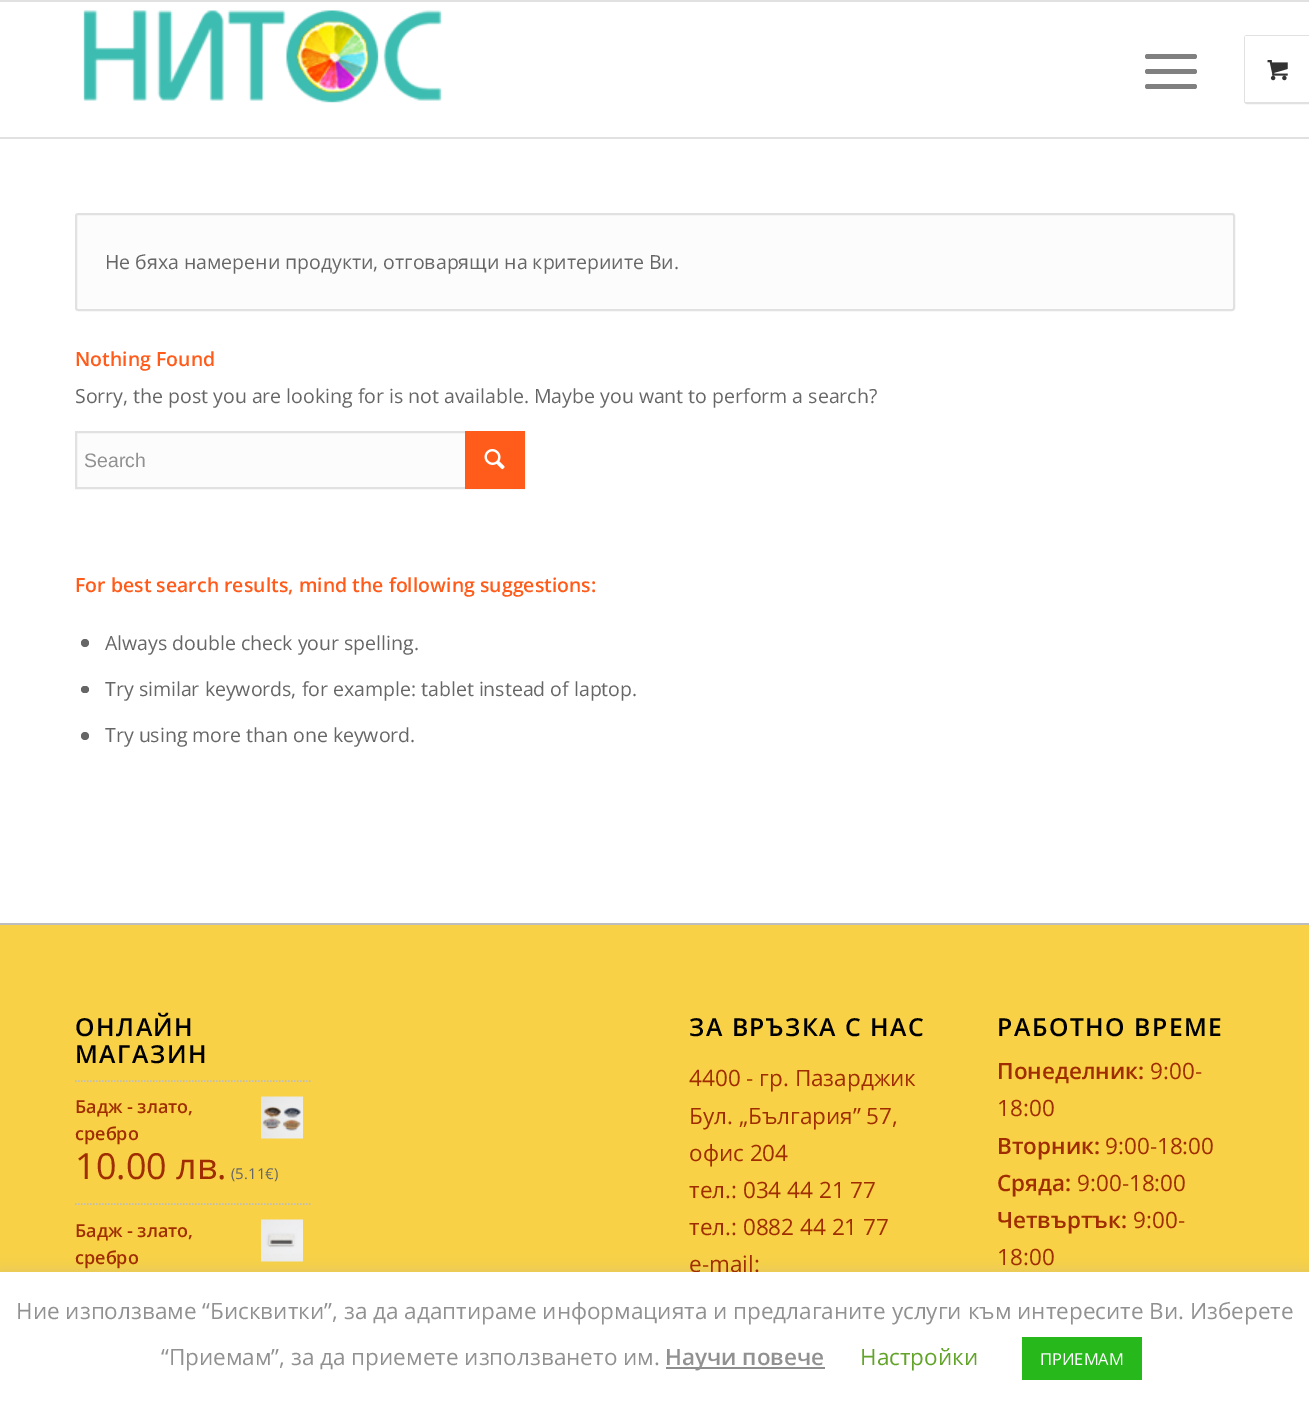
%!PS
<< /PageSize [1309 1405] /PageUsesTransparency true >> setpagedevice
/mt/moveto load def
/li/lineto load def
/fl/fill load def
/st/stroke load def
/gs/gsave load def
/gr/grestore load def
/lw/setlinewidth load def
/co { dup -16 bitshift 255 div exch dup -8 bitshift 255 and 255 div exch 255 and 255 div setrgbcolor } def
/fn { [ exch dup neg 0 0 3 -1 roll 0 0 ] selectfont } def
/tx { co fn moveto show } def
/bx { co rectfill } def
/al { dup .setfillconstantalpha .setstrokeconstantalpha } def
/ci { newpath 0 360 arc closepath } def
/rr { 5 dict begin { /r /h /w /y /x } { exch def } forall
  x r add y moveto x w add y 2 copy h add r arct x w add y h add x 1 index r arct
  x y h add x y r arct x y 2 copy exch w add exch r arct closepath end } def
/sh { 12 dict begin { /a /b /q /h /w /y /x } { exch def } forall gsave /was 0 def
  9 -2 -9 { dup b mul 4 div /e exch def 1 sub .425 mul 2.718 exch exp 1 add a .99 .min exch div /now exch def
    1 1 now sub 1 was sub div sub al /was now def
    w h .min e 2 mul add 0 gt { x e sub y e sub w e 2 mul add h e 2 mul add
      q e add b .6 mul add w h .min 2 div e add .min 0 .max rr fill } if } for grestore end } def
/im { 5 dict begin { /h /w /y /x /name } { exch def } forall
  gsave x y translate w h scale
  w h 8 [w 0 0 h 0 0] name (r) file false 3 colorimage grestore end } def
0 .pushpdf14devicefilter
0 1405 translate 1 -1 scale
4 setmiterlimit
0 0 1309 1405 16#FFFFFF bx
0 0 1309 2 16#E1E1E1 bx
0 137 1309 2 16#E1E1E1 bx
(media/1.raw) 83 10 359 93 im
16#808080 co
1145 69 52 5 2.5 rr fl
1145 54 52 5 2.5 rr fl
1145 84 52 5 2.5 rr fl
16#E1E1E1 co
2 lw
1245 36 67 67 2 rr st
1245 36 64 66 16#FFFFFF bx
(media/2.raw) 1267 60 21 21 im
16#FCFCFC co
76 214 1158 96 2 rr gs fl gr
16#E1E1E1 co
st
77 433 388 54 16#FCFCFC bx
16#E1E1E1 co
76 432 448 56 rectstroke
465 431 60 58 16#FF5B1A bx
(media/3.raw) 484 449 21 21 im
16#666666 co
85 643 4 ci fl
81 686 8 7 3.5 rr fl
85 736 4 ci fl
0 925 1309 347 16#F8D146 bx
0 923 1309 2 16#BDBDBD bx
1.5 lw
[1.5 1.5] 0 setdash
75 1081 mt 312 1081 li st
(media/4.raw) 261 1096 42 43 im
75 1204 mt 312 1204 li st
(media/5.raw) 261 1219 42 43 im
16#ACABAB co
0 1271 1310 133 0 7.5 .3 sh
(Не бяха намерени продукти, отговарящи на критериите Ви.) 105 269 /OpenSans-Regular 19.5 16#666666 tx
(Nothing Found) 75 366 /OpenSans-SemiBold 19.5 16#FF5B1A tx
(Sorry, the post you are looking for is not available. Maybe you want to perform a search?) 75 403 /OpenSans-Regular 19.5 16#666666 tx
(Search) 84 467 /LiberationSans-Regular 19.5 16#919191 tx
(For best search results, mind the following suggestions:) 75 592 /OpenSans-SemiBold 19.5 16#FF5B1A tx
(Always double check your spelling.) 105 650 /OpenSans-Regular 19.5 16#666666 tx
(Try similar keywords, for example: tablet instead of laptop.) 105 696 /OpenSans-Regular 19.5 16#666666 tx
(Try using more than one keyword.) 105 742 /OpenSans-Regular 19.5 16#666666 tx
/OpenSans-SemiBold 24.75 fn
16#000000 co
75 1036 mt 1.5 0 (ОНЛАЙН) ashow
75 1063 mt 1.5 0 (МАГАЗИН) ashow
(Бадж - злато,) 75 1113 /OpenSans-SemiBold 18 16#9F2D00 tx
(сребро) 75 1140 /OpenSans-SemiBold 18 16#9F2D00 tx
(10.00 лв.) 75 1179 /OpenSans-Regular 36 16#9F2D00 tx
(\(5.11€\)) 231 1179 /OpenSans-Regular 15 16#666666 tx
(Бадж - злато,) 75 1237 /OpenSans-SemiBold 18 16#9F2D00 tx
(сребро) 75 1264 /OpenSans-SemiBold 18 16#9F2D00 tx
/OpenSans-SemiBold 24.75 fn
16#000000 co
689 1036 mt 1.5 0 (ЗА ВРЪЗКА С НАС) ashow
(4400 - гр. Пазарджик) 689 1086 /OpenSans-Regular 22.5 16#9F2D00 tx
(Бул. „България” 57,) 689 1124 /OpenSans-Regular 22.5 16#9F2D00 tx
(офис 204) 689 1161 /OpenSans-Regular 22.5 16#9F2D00 tx
(тел.: 034 44 21 77) 689 1198 /OpenSans-Regular 22.5 16#9F2D00 tx
(тел.: 0882 44 21 77) 689 1235 /OpenSans-Regular 22.5 16#9F2D00 tx
(e-mail:) 689 1272 /OpenSans-Regular 22.5 16#9F2D00 tx
/OpenSans-SemiBold 24.75 fn
16#000000 co
997 1036 mt 1.5 0 (РАБОТНО ВРЕМЕ) ashow
(Понеделник:) 997 1079 /OpenSans-SemiBold 22.5 16#9F2D00 tx
(9:00-) 1150 1079 /OpenSans-Regular 22.5 16#9F2D00 tx
(18:00) 997 1116 /OpenSans-Regular 22.5 16#9F2D00 tx
(Вторник:) 997 1154 /OpenSans-SemiBold 22.5 16#9F2D00 tx
(9:00-18:00) 1105 1154 /OpenSans-Regular 22.5 16#9F2D00 tx
(Сряда:) 997 1191 /OpenSans-SemiBold 22.5 16#9F2D00 tx
(9:00-18:00) 1077 1191 /OpenSans-Regular 22.5 16#9F2D00 tx
(Четвъртък:) 997 1228 /OpenSans-SemiBold 22.5 16#9F2D00 tx
(9:00-) 1133 1228 /OpenSans-Regular 22.5 16#9F2D00 tx
(18:00) 997 1265 /OpenSans-Regular 22.5 16#9F2D00 tx
0 1272 1309 133 16#FFFFFF bx
(Ние използваме “Бисквитки”, за да адаптираме информацията и предлаганите услуги към интересите Ви. Изберете) 16 1319 /OpenSans-Regular 22.5 16#919191 tx
(“Приемам”, за да приемете използването им.) 161 1365 /OpenSans-Regular 22.5 16#919191 tx
666 1367 159 2 16#8E8E8E bx
(Научи повече) 665 1365 /OpenSans-SemiBold 22.5 16#919191 tx
(Настройки) 860 1365 /OpenSans-Regular 22.5 16#62A329 tx
1022 1337 120 43 16#27B91C bx
(ПРИЕМАМ) 1040 1365 /OpenSans-Regular 16.5 16#FFFFFF tx
.poppdf14devicefilter showpage
